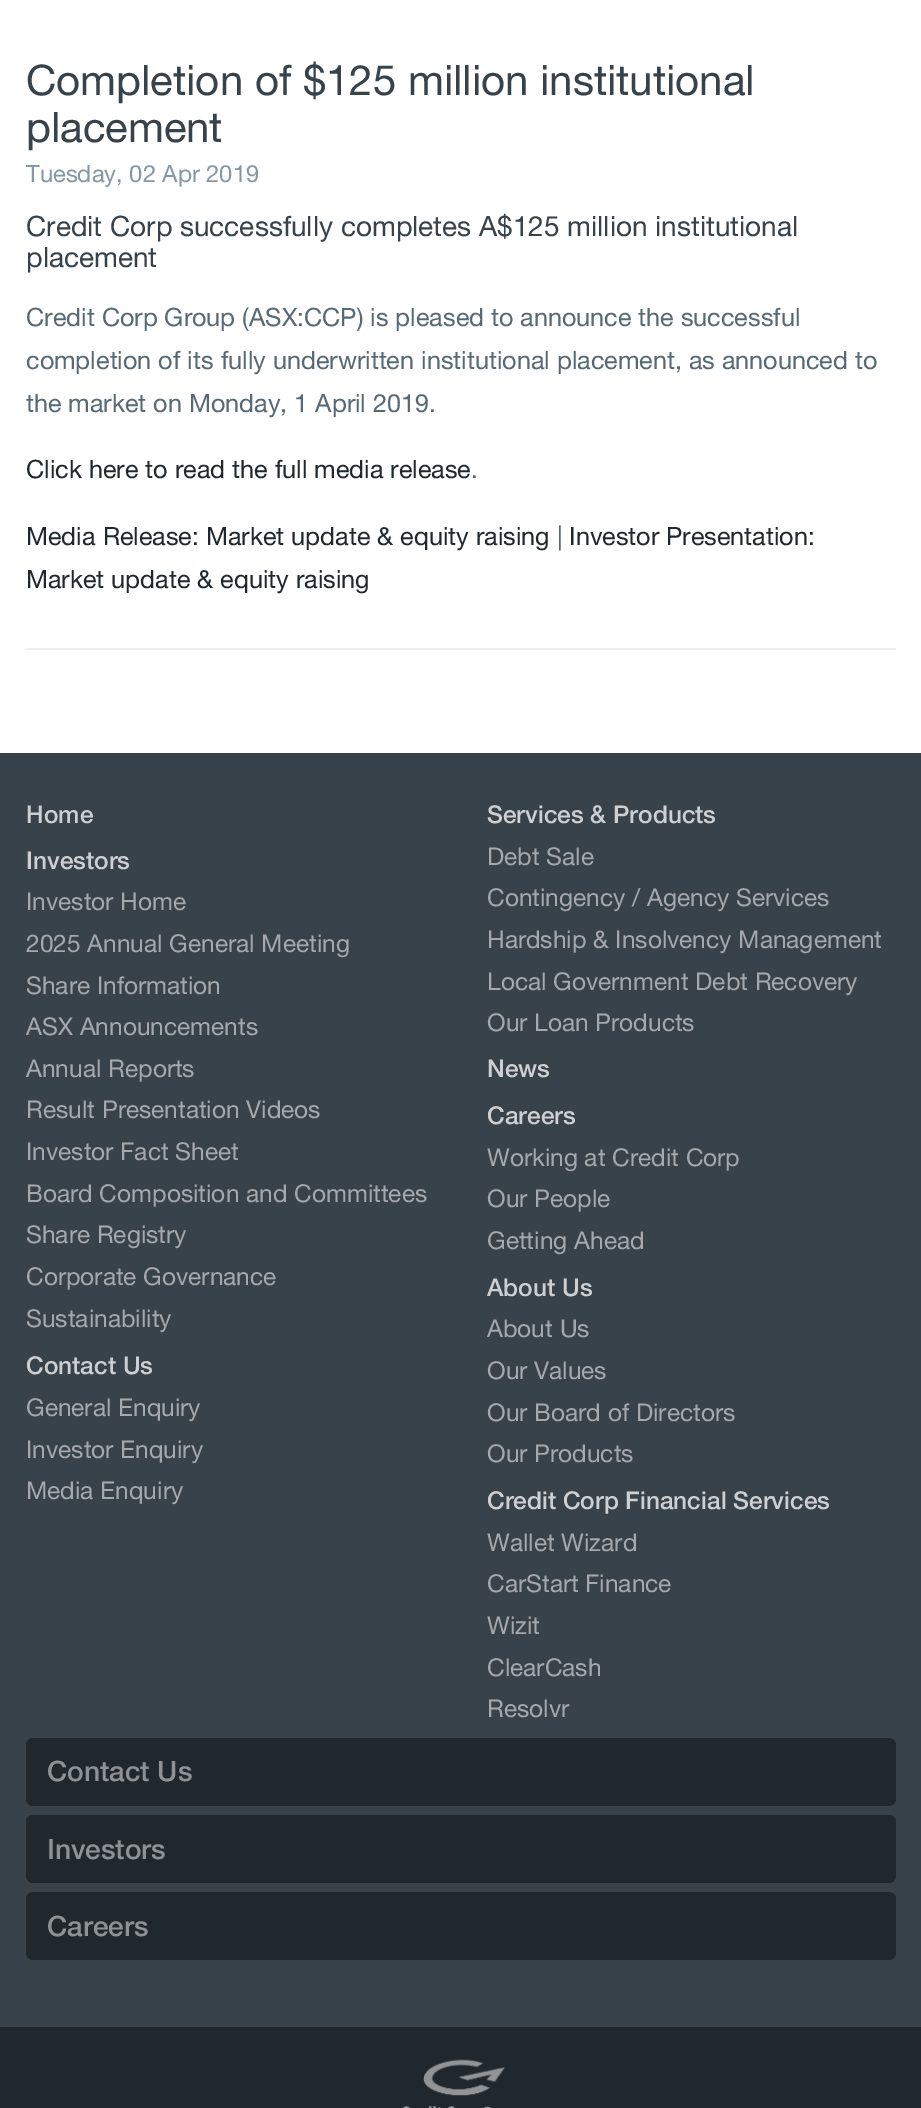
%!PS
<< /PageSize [921 2108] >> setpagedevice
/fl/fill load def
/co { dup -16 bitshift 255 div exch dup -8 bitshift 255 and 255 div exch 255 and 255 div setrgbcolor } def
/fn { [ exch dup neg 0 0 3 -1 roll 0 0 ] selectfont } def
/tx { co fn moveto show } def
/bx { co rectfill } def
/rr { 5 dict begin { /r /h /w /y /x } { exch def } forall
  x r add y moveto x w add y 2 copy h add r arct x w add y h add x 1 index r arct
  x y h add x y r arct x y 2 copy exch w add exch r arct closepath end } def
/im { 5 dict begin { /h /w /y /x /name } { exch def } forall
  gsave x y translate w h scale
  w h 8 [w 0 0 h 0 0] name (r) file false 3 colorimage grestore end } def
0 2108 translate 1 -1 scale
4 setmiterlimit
0 0 921 2108 16#FFFFFF bx
26 648 870 2 16#EEEEEE bx
0 753 921 1274 16#37424A bx
16#21282D co
26 1738 870 68 7 rr fl
26 1815 870 68 7 rr fl
26 1892 870 68 7 rr fl
0 2027 921 81 16#21282D bx
(media/1.raw) 402 2059 103 49 im
(Completion of $125 million institutional) 26 95 /HelveticaNeue-Regular 42 16#37424A tx
(placement) 26 142 /HelveticaNeue-Regular 42 16#37424A tx
(Tuesday, 02 Apr 2019) 26 182 /HelveticaNeue-Regular 23.75 16#8597A4 tx
(Credit Corp successfully completes A$125 million institutional) 26 236 /HelveticaNeue-Regular 28 16#37424A tx
(placement) 26 267 /HelveticaNeue-Regular 28 16#37424A tx
(Credit Corp Group \(ASX:CCP\) is pleased to announce the successful) 26 326 /HelveticaNeue-Regular 25.2 16#586976 tx
(completion of its fully underwritten institutional placement, as announced to) 26 369 /HelveticaNeue-Regular 25.2 16#586976 tx
(the market on Monday, 1 April 2019.) 26 412 /HelveticaNeue-Regular 25.2 16#586976 tx
(Click here to read the full media release) 26 478 /HelveticaNeue-Regular 25.2 16#21282D tx
(.) 471 478 /HelveticaNeue-Regular 25.2 16#586976 tx
(Media Release: Market update & equity raising) 26 545 /HelveticaNeue-Regular 25.2 16#21282D tx
(|) 557 545 /HelveticaNeue-Regular 25.2 16#586976 tx
(Investor Presentation:) 569 545 /HelveticaNeue-Regular 25.2 16#21282D tx
(Market update & equity raising) 26 588 /HelveticaNeue-Regular 25.2 16#21282D tx
(Home) 26 823 /HelveticaNeue-Medium 24.5 16#CDCFD1 tx
(Services & Products) 487 823 /HelveticaNeue-Medium 24.5 16#CDCFD1 tx
(Debt Sale) 487 865 /HelveticaNeue-Regular 24.5 16#A5A8AD tx
(Contingency / Agency Services) 487 906 /HelveticaNeue-Regular 24.5 16#A5A8AD tx
(Hardship & Insolvency Management) 487 948 /HelveticaNeue-Regular 24.5 16#A5A8AD tx
(Local Government Debt Recovery) 487 990 /HelveticaNeue-Regular 24.5 16#A5A8AD tx
(Our Loan Products) 487 1031 /HelveticaNeue-Regular 24.5 16#A5A8AD tx
(Investors) 26 869 /HelveticaNeue-Medium 24.5 16#CDCFD1 tx
(Investor Home) 26 910 /HelveticaNeue-Regular 24.5 16#A5A8AD tx
(2025 Annual General Meeting) 26 952 /HelveticaNeue-Regular 24.5 16#A5A8AD tx
(Share Information) 26 994 /HelveticaNeue-Regular 24.5 16#A5A8AD tx
(ASX Announcements) 26 1035 /HelveticaNeue-Regular 24.5 16#A5A8AD tx
(Annual Reports) 26 1077 /HelveticaNeue-Regular 24.5 16#A5A8AD tx
(Result Presentation Videos) 26 1118 /HelveticaNeue-Regular 24.5 16#A5A8AD tx
(Investor Fact Sheet) 26 1160 /HelveticaNeue-Regular 24.5 16#A5A8AD tx
(Board Composition and Committees) 26 1202 /HelveticaNeue-Regular 24.5 16#A5A8AD tx
(Share Registry) 26 1243 /HelveticaNeue-Regular 24.5 16#A5A8AD tx
(Corporate Governance) 26 1285 /HelveticaNeue-Regular 24.5 16#A5A8AD tx
(Sustainability) 26 1327 /HelveticaNeue-Regular 24.5 16#A5A8AD tx
(News) 487 1077 /HelveticaNeue-Medium 24.5 16#CDCFD1 tx
(Careers) 487 1124 /HelveticaNeue-Medium 24.5 16#CDCFD1 tx
(Working at Credit Corp) 487 1166 /HelveticaNeue-Regular 24.5 16#A5A8AD tx
(Our People) 487 1207 /HelveticaNeue-Regular 24.5 16#A5A8AD tx
(Getting Ahead) 487 1249 /HelveticaNeue-Regular 24.5 16#A5A8AD tx
(Contact Us) 26 1374 /HelveticaNeue-Medium 24.5 16#CDCFD1 tx
(General Enquiry) 26 1416 /HelveticaNeue-Regular 24.5 16#A5A8AD tx
(Investor Enquiry) 26 1458 /HelveticaNeue-Regular 24.5 16#A5A8AD tx
(Media Enquiry) 26 1499 /HelveticaNeue-Regular 24.5 16#A5A8AD tx
(About Us) 487 1296 /HelveticaNeue-Medium 24.5 16#CDCFD1 tx
(About Us) 487 1337 /HelveticaNeue-Regular 24.5 16#A5A8AD tx
(Our Values) 487 1379 /HelveticaNeue-Regular 24.5 16#A5A8AD tx
(Our Board of Directors) 487 1421 /HelveticaNeue-Regular 24.5 16#A5A8AD tx
(Our Products) 487 1462 /HelveticaNeue-Regular 24.5 16#A5A8AD tx
(Credit Corp Financial Services) 487 1509 /HelveticaNeue-Medium 24.5 16#CDCFD1 tx
(Wallet Wizard) 487 1551 /HelveticaNeue-Regular 24.5 16#A5A8AD tx
(CarStart Finance) 487 1592 /HelveticaNeue-Regular 24.5 16#A5A8AD tx
(Wizit) 487 1634 /HelveticaNeue-Regular 24.5 16#A5A8AD tx
(ClearCash) 487 1676 /HelveticaNeue-Regular 24.5 16#A5A8AD tx
(Resolvr) 487 1717 /HelveticaNeue-Regular 24.5 16#A5A8AD tx
(Contact Us) 47 1781 /HelveticaNeue-Medium 28 16#8F9295 tx
(Investors) 47 1859 /HelveticaNeue-Medium 28 16#8F9295 tx
(Careers) 47 1936 /HelveticaNeue-Medium 28 16#8F9295 tx
showpage
